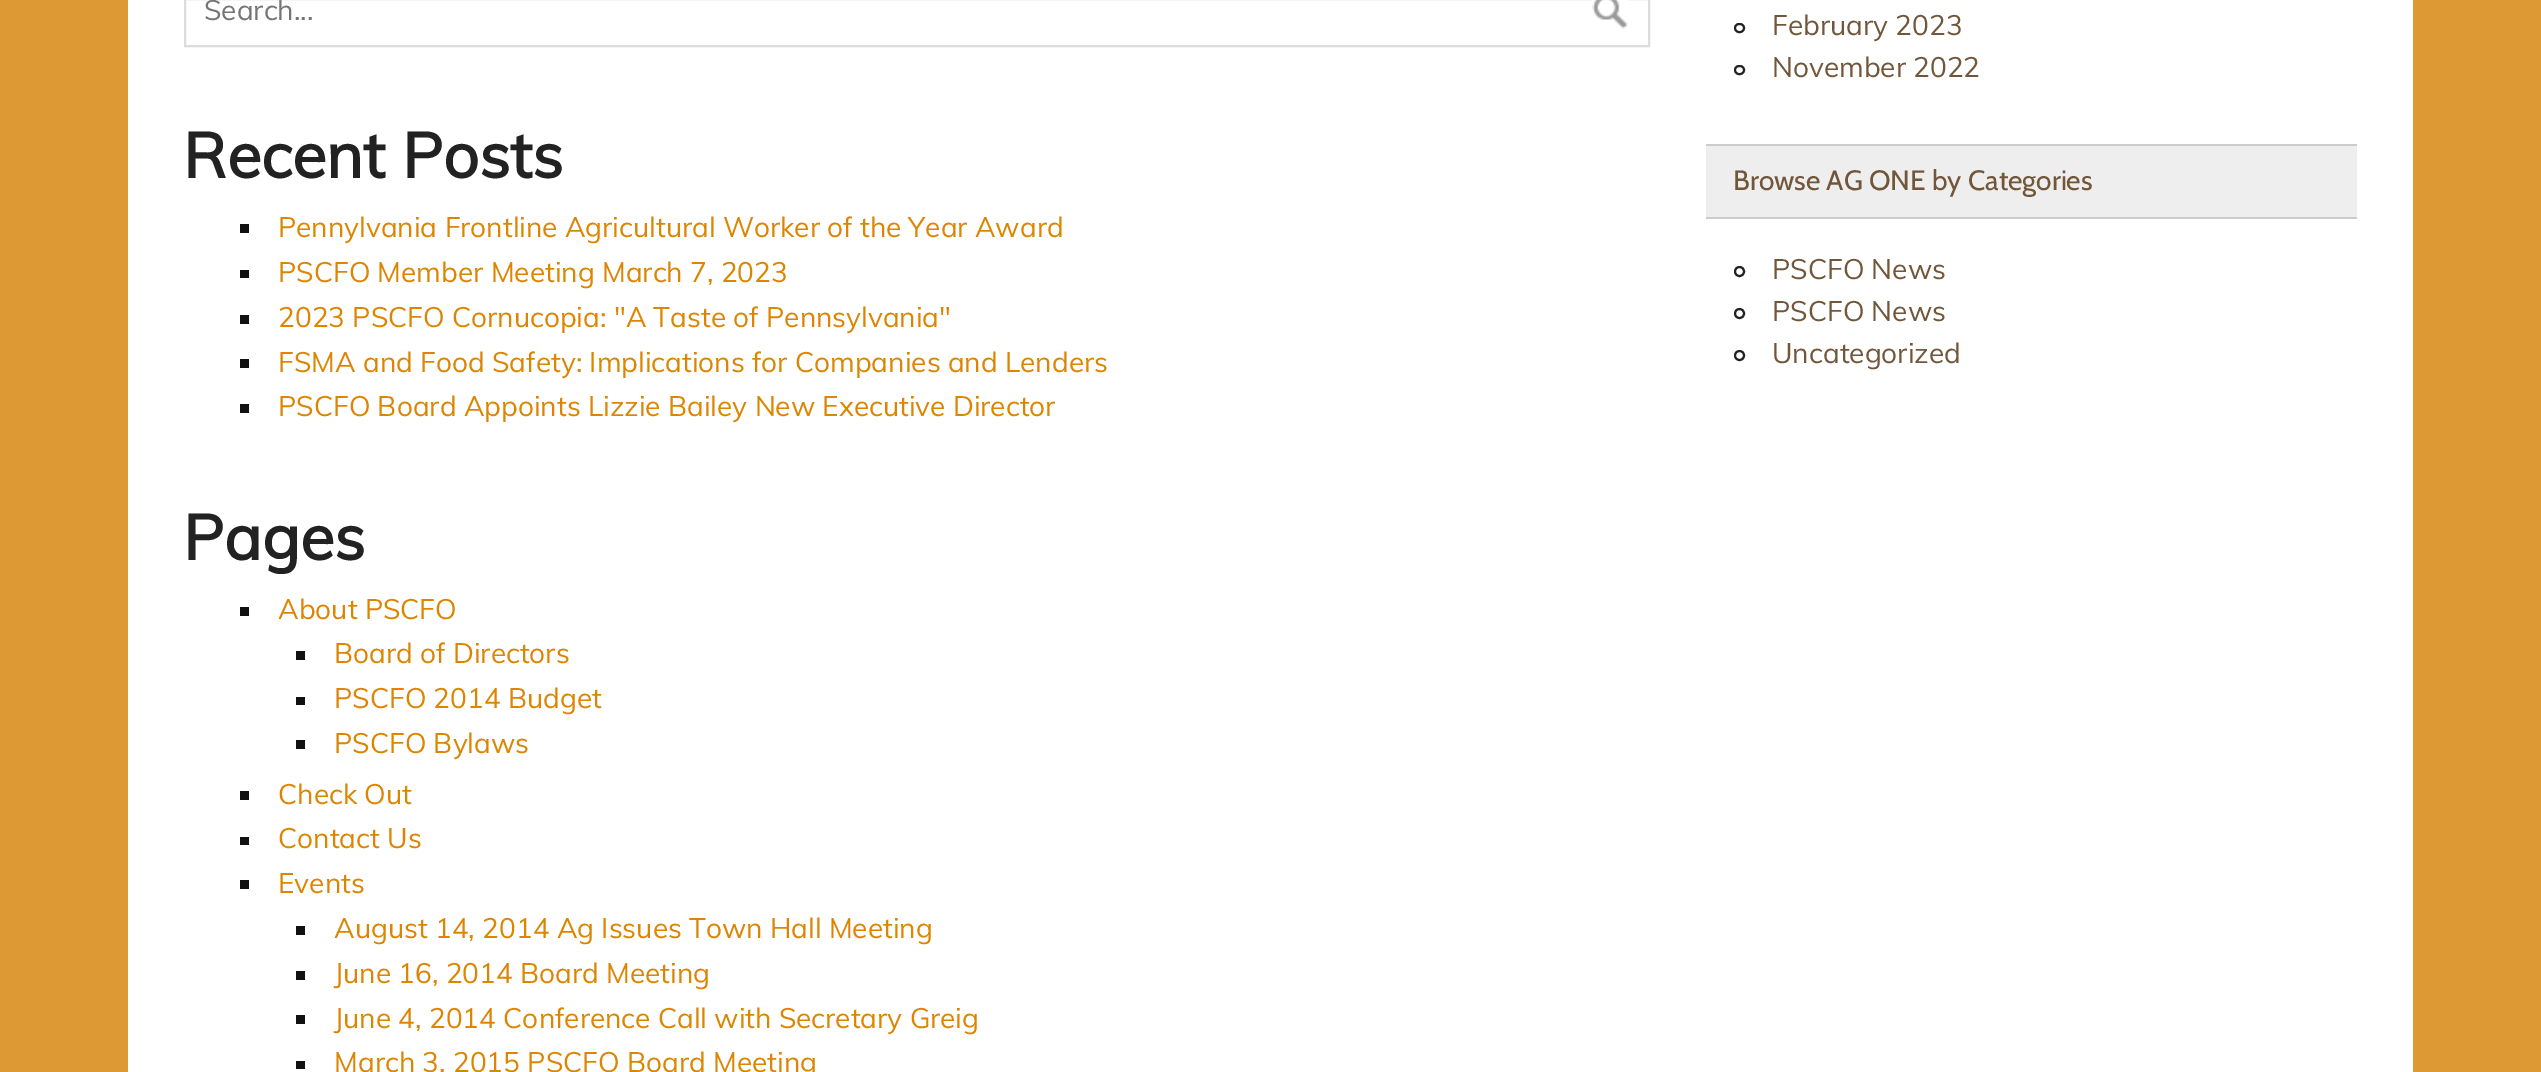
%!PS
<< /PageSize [2541 1072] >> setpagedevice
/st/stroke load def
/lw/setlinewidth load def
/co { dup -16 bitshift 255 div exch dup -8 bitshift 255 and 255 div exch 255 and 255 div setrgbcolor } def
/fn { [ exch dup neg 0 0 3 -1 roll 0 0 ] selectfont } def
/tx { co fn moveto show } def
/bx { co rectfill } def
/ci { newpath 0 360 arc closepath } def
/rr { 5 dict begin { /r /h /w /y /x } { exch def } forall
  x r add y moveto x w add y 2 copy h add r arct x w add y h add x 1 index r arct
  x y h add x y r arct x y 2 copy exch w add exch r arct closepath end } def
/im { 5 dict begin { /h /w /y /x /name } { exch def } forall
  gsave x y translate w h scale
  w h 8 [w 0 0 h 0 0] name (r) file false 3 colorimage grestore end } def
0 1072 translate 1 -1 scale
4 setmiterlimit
0 0 2541 1072 16#DD9933 bx
128 0 2285 1072 16#FFFFFF bx
16#DDDDDD co
2 lw
185 -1 1464 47 rectstroke
(media/1.raw) 1592 0 36 29 im
240 224 9 9 16#111111 bx
240 270 9 8 16#111111 bx
240 315 9 9 16#111111 bx
240 359 9 9 16#111111 bx
240 404 9 9 16#111111 bx
240 607 9 9 16#111111 bx
296 651 9 9 16#111111 bx
296 697 9 8 16#111111 bx
296 740 9 9 16#111111 bx
240 791 9 9 16#111111 bx
240 837 9 8 16#111111 bx
240 880 9 9 16#111111 bx
296 926 9 9 16#111111 bx
296 971 9 9 16#111111 bx
296 1015 9 9 16#111111 bx
296 1061 9 8 16#111111 bx
16#222222 co
1735 24 9 8 4 rr st
1735 66 9 8 4 rr st
1706 146 651 71 16#EEEEEE bx
1706 144 651 2 16#CCCCCC bx
1706 217 651 2 16#CCCCCC bx
16#222222 co
1739.5 271.5 4.5 ci st
1739.5 313.5 4.5 ci st
1739.5 355.5 4.5 ci st
(Search...) 204 20 /Muli-Regular 28 16#757575 tx
(Recent Posts) 183 178 /Muli-Bold 63 16#222222 tx
(Pennylvania Frontline Agricultural Worker of the Year Award) 278 237 /Muli-Regular 28 16#DD8500 tx
(PSCFO Member Meeting March 7, 2023) 278 282 /Muli-Regular 28 16#DD8500 tx
(2023 PSCFO Cornucopia: "A Taste of Pennsylvania") 278 327 /Muli-Regular 28 16#DD8500 tx
(FSMA and Food Safety: Implications for Companies and Lenders) 278 372 /Muli-Regular 28 16#DD8500 tx
(PSCFO Board Appoints Lizzie Bailey New Executive Director) 278 416 /Muli-Regular 28 16#DD8500 tx
(Pages) 183 560 /Muli-Bold 63 16#222222 tx
(About PSCFO) 278 619 /Muli-Regular 28 16#DD8500 tx
(Board of Directors) 334 663 /Muli-Regular 28 16#DD8500 tx
(PSCFO 2014 Budget) 334 708 /Muli-Regular 28 16#DD8500 tx
(PSCFO Bylaws) 334 753 /Muli-Regular 28 16#DD8500 tx
(Check Out) 278 804 /Muli-Regular 28 16#DD8500 tx
(Contact Us) 278 848 /Muli-Regular 28 16#DD8500 tx
(Events) 278 893 /Muli-Regular 28 16#DD8500 tx
(August 14, 2014 Ag Issues Town Hall Meeting) 334 938 /Muli-Regular 28 16#DD8500 tx
(June 16, 2014 Board Meeting) 334 983 /Muli-Regular 28 16#DD8500 tx
(June 4, 2014 Conference Call with Secretary Greig) 334 1028 /Muli-Regular 28 16#DD8500 tx
(March 3, 2015 PSCFO Board Meeting) 334 1072 /Muli-Regular 28 16#DD8500 tx
(February 2023) 1772 35 /Muli-Regular 28 16#725639 tx
(November 2022) 1772 77 /Muli-Regular 28 16#725639 tx
(Browse AG ONE by Categories) 1733 190 /Cabin-Regular 28 16#725639 tx
(PSCFO News) 1772 279 /Muli-Regular 28 16#725639 tx
(PSCFO News) 1772 321 /Muli-Regular 28 16#725639 tx
(Uncategorized) 1772 363 /Muli-Regular 28 16#725639 tx
showpage
